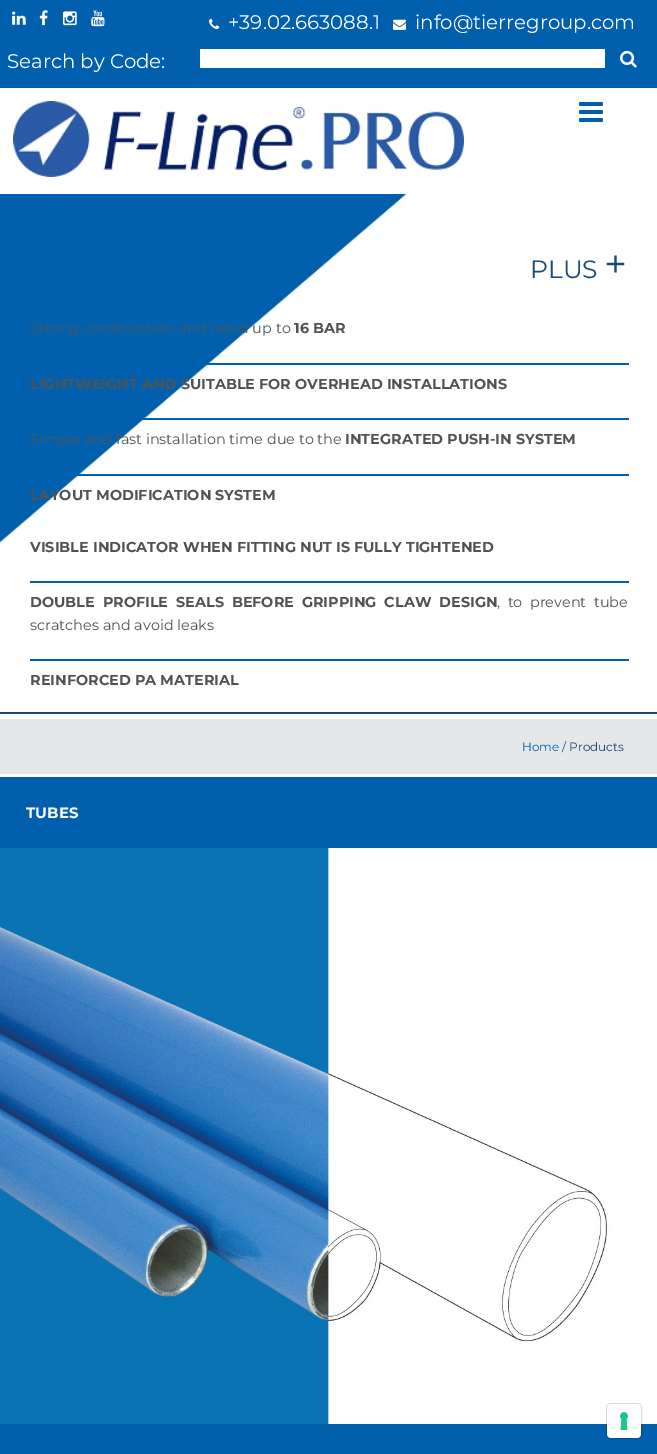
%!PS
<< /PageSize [657 1454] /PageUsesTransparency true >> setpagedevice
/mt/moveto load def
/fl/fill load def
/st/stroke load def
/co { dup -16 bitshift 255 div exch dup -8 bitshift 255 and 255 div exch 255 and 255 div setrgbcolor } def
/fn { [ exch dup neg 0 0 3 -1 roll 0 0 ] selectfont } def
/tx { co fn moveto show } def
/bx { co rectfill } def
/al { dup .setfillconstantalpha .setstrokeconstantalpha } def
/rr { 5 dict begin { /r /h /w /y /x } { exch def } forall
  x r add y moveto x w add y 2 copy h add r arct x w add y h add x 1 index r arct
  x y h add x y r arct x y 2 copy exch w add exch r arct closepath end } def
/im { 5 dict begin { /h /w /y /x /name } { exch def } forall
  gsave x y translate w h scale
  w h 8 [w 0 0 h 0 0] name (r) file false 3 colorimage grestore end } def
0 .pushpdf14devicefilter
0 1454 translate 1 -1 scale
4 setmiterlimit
0 0 657 1454 16#FFFFFF bx
0 0 657 88 16#0060AD bx
(media/1.raw) 12 11 14 14 im
(media/2.raw) 39 10 9 16 im
(media/3.raw) 63 11 14 15 im
(media/4.raw) 91 10 14 17 im
(media/5.raw) 209 18 11 11 im
(media/6.raw) 393 19 13 11 im
200 49 405 19 16#FFFFFF bx
(media/7.raw) 620 50 17 18 im
(media/8.raw) 13 101 451 76 im
(media/9.raw) 579 102 24 20 im
(media/10.raw) 0 194 407 349 im
205 363 424 2 16#0060AD bx
141 418 488 2 16#0060AD bx
76 474 553 2 16#0060AD bx
30 581 599 2 16#0060AD bx
30 659 599 2 16#0060AD bx
0 712 657 2 16#184979 bx
0 719 657 55 16#E6E7E8 bx
0 777 657 71 16#0060AD bx
(media/11.raw) 0 848 657 576 im
0 1424 657 30 16#0060AD bx
0.15 al
16#000000 co
606.5 1403.5 35 35 4.5 rr st
1 al
16#FFFFFF co
607 1404 34 34 4 rr fl
(media/12.raw) 620 1412 8 18 im
(+39.02.663088.1) 228 29 /Montserrat-Regular 19.75 16#FFFFFF tx
(info@tierregroup.com) 415 29 /Montserrat-Regular 19.75 16#FFFFFF tx
(Search by Code:) 7 68 /Montserrat-Regular 19.75 16#FFFFFF tx
(PLUS) 530 278 /Montserrat-Regular 25 16#184979 tx
(+) 604 278 /Montserrat-Regular 40 16#184979 tx
(Strong construction and rated up to) 30 333 /Montserrat-Regular 14.4 16#505353 tx
(16 BAR) 294 333 /Montserrat-Bold 14.4 16#505353 tx
(LIGHTWEIGHT AND SUITABLE FOR OVERHEAD INSTALLATIONS) 30 389 /Montserrat-Bold 14.4 16#505353 tx
(Simple and fast installation time due to the) 30 444 /Montserrat-Regular 14.4 16#505353 tx
(INTEGRATED PUSH-IN SYSTEM) 345 444 /Montserrat-Bold 14.4 16#505353 tx
(LAYOUT MODIFICATION SYSTEM) 30 500 /Montserrat-Bold 14.4 16#505353 tx
(VISIBLE INDICATOR WHEN FITTING NUT IS FULLY TIGHTENED) 30 552 /Montserrat-Bold 14.4 16#505353 tx
30 607 mt 3.75 0 32 (DOUBLE PROFILE SEALS BEFORE GRIPPING CLAW DESIGN) widthshow
/Montserrat-Regular 14.4 fn
497 607 mt 3.75 0 32 (, to prevent tube) widthshow
(scratches and avoid leaks) 30 630 /Montserrat-Regular 14.4 16#505353 tx
(REINFORCED PA MATERIAL) 30 685 /Montserrat-Bold 14.4 16#505353 tx
(Home) 522 751 /Montserrat-Regular 12 16#0060AD tx
(/ Products) 562 751 /Montserrat-Regular 12 16#184979 tx
(TUBES) 26 818 /Montserrat-Bold 15 16#FFFFFF tx
.poppdf14devicefilter showpage
